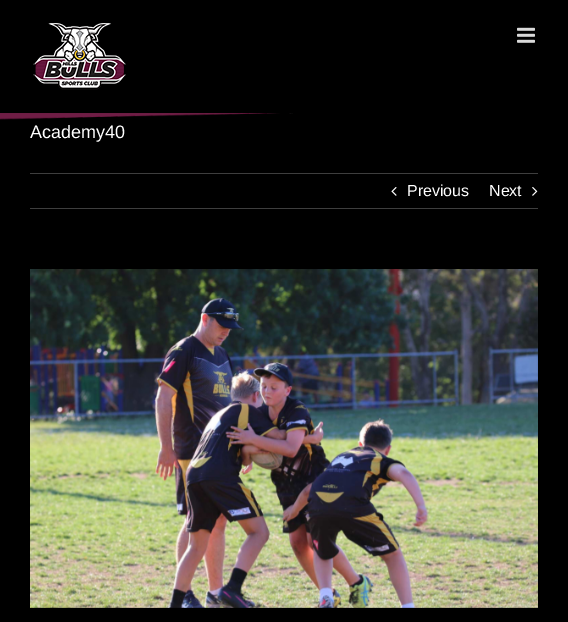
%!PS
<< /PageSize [568 622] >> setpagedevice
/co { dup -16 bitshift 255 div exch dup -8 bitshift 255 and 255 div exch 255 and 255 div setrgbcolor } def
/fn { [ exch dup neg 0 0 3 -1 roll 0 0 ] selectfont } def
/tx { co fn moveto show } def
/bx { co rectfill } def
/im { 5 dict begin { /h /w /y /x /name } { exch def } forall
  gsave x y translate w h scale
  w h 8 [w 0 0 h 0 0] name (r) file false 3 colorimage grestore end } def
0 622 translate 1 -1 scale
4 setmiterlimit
0 0 568 622 16#000000 bx
(media/1.raw) 33 23 93 67 im
(media/2.raw) 517 27 18 16 im
(media/3.raw) 0 113 293 7 im
30 173 508 1 16#3E3E3E bx
30 208 508 1 16#3E3E3E bx
(media/4.raw) 391 187 6 9 im
(media/5.raw) 532 187 6 9 im
(media/6.raw) 30 269 508 339 im
(Academy40) 30 138 /LiberationSans-Regular 18 16#FFFFFF tx
(Previous) 407 196 /LiberationSans-Regular 16 16#FFFFFF tx
(Next) 489 196 /LiberationSans-Regular 16 16#FFFFFF tx
showpage
